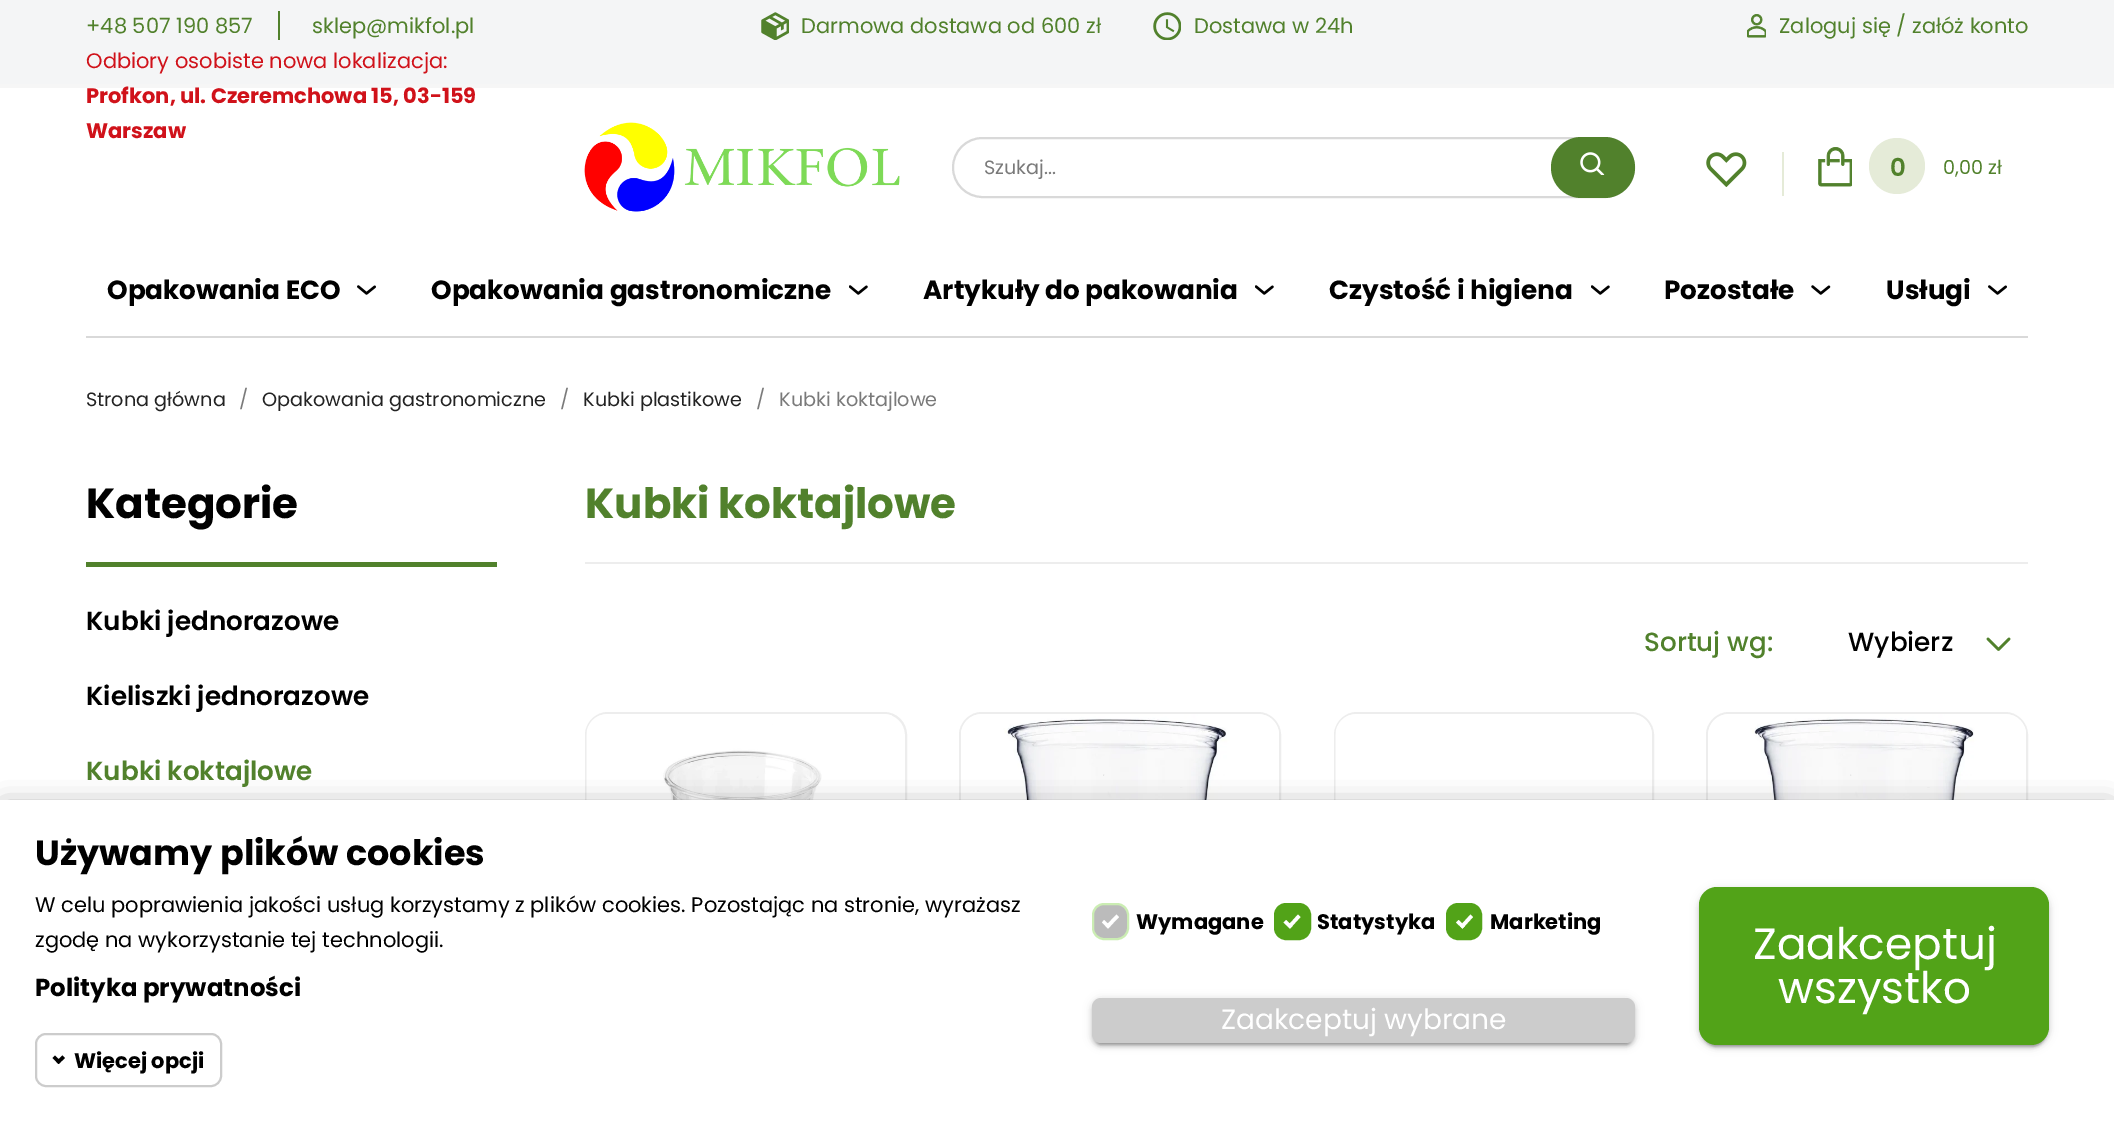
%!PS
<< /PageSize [2114 1130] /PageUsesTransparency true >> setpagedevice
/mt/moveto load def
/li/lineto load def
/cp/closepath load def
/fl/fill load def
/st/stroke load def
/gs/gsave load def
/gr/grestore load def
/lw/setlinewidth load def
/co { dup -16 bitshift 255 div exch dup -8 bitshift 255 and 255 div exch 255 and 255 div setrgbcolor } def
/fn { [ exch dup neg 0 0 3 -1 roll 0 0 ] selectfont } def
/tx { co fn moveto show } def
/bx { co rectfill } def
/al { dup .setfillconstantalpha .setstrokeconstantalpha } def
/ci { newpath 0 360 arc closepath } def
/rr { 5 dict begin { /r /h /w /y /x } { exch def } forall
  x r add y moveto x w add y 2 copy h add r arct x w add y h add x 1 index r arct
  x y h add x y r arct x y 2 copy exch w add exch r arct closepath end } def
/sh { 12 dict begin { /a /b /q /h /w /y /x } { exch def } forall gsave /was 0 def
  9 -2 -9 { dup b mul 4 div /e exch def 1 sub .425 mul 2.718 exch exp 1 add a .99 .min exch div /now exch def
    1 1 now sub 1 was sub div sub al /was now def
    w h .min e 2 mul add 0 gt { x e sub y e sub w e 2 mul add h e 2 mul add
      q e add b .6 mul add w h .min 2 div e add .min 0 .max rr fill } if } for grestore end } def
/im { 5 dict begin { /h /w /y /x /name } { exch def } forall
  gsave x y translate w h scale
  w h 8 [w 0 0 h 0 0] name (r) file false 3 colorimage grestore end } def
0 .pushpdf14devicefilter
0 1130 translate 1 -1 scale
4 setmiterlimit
0 0 2114 1130 16#FFFFFF bx
0 0 2114 84 16#F4F5F6 bx
0 84 2114 4 16#F6F6F6 bx
278 11 2 29 16#51812C bx
(media/1.raw) 761 12 28 28 im
(media/2.raw) 1153 12 28 28 im
(media/3.raw) 1747 14 19 24 im
(media/4.raw) 584 122 316 90 im
16#D9D9D9 co
2 lw
953 138 681 59 29.5 rr st
16#51812C co
1551 137 84 61 30.5 rr fl
(media/5.raw) 1580 152 25 23 im
1782 152 2 44 16#E5EBD8 bx
(media/6.raw) 1706 152 41 35 im
(media/7.raw) 1818 147 34 40 im
1897 166 28 ci fl
86 336 1942 2 16#D9D9D9 bx
(media/8.raw) 357 285 19 10 im
(media/9.raw) 849 285 19 10 im
(media/9.raw) 1255 285 19 10 im
(media/9.raw) 1591 285 19 10 im
(media/10.raw) 1811 285 20 10 im
(media/8.raw) 1988 285 19 10 im
86 562 411 5 16#51812C bx
585 562 1443 2 16#EDEDED bx
16#51812C co
2.6 lw
1 setlinecap
1 setlinejoin
2009 639 mt 1998.5 649.5 li 1988 639 li st
16#EDEDED co
2 lw
0 setlinecap
0 setlinejoin
586 713 320 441 22 rr st
(media/11.raw) 586 714 306 86 im
960 713 320 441 22 rr st
(media/12.raw) 961 714 318 86 im
1335 713 318 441 22 rr st
(media/13.raw) 1335 714 317 86 im
1707 713 320 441 22 rr st
(media/14.raw) 1708 714 318 86 im
16#000000 co
5 809 2104 320 0 13 .5 sh
0 800 2114 330 16#FFFFFF bx
16#CCCCCC co
36 1034 185 52 10 rr st
16#000000 co
65 1058 mt 58.5 1064 li 56 1061.5 li 62.5 1055.5 li cp fl
61 1061.5 mt 58.5 1064 li 52.5 1058 li 55 1055.5 li cp fl
16#BBBBBB co
1093 904 35 35 11 rr gs fl gr
16#CBEDB3 co
st
16#FFFFFF co
1116.5 914.5 mt 1119 917 li 1108 928.5 li 1105.5 926 li cp fl
1104 920 mt 1110.5 926 li 1108 928.5 li 1102 922.5 li cp fl
16#52A318 co
1275 904 35 35 11 rr gs fl gr
st
16#FFFFFF co
1298 914.5 mt 1300.5 917 li 1290 928.5 li 1287.5 926 li cp fl
1286 920 mt 1292.5 926 li 1290 928.5 li 1283.5 922.5 li cp fl
16#52A318 co
1447 904 34 35 11 rr gs fl gr
st
16#FFFFFF co
1470.5 914.5 mt 1473 917 li 1462.5 928.5 li 1460 926 li cp fl
1458.5 920 mt 1465 926 li 1462.5 928.5 li 1456 922.5 li cp fl
16#000000 co
1092 999 543 46 9 4.5 .12 sh
1092 1001 543 46 9 2 .14 sh
1096 1006 535 39 5 1 .2 sh
16#CCCCCC co
1092 998 543 45 9 rr fl
16#000000 co
1699 889 350 158 18 4.5 .12 sh
1699 891 350 157 18 2 .14 sh
1703 896 343 151 14 1 .2 sh
16#52A318 co
1699 887 350 158 18 rr fl
(+48 507 190 857) 86 33 /Poppins-Regular 21 16#51812C tx
(sklep@mikfol.pl) 312 33 /Poppins-Regular 21 16#51812C tx
(Odbiory osobiste nowa lokalizacja:) 86 68 /Poppins-Regular 21 16#D0121A tx
(Profkon, ul. Czeremchowa 15, 03-159) 86 103 /Poppins-Bold 21 16#D0121A tx
(Warszaw) 86 138 /Poppins-Bold 21 16#D0121A tx
(Darmowa dostawa od 600 zł) 801 33 /Poppins-Regular 21 16#51812C tx
(Dostawa w 24h) 1194 33 /Poppins-Regular 21 16#51812C tx
(Zaloguj się / załóż konto) 1779 33 /Poppins-Regular 21 16#51812C tx
(Szukaj...) 984 174 /Poppins-Regular 19.25 16#7A7A7A tx
(0) 1890 176 /Poppins-SemiBold 24.5 16#51812C tx
(0,00 zł) 1943 174 /Poppins-Regular 19.25 16#51812C tx
(Opakowania ECO) 107 299 /Poppins-Bold 26.25 16#000000 tx
(Opakowania gastronomiczne) 431 299 /Poppins-Bold 26.25 16#000000 tx
(Artykuły do pakowania) 923 299 /Poppins-Bold 26.25 16#000000 tx
(Czystość i higiena) 1329 299 /Poppins-Bold 26.25 16#000000 tx
(Pozostałe) 1664 299 /Poppins-Bold 26.25 16#000000 tx
(Usługi) 1886 299 /Poppins-Bold 26.25 16#000000 tx
(Strona główna) 86 406 /Poppins-Regular 19.25 16#232323 tx
(/) 239 406 /Poppins-Regular 19.25 16#7A7A7A tx
(Opakowania gastronomiczne) 262 406 /Poppins-Regular 19.25 16#232323 tx
(/) 560 406 /Poppins-Regular 19.25 16#7A7A7A tx
(Kubki plastikowe) 583 406 /Poppins-Regular 19.25 16#232323 tx
(/) 756 406 /Poppins-Regular 19.25 16#7A7A7A tx
(Kubki koktajlowe) 779 406 /Poppins-Regular 19.25 16#7A7A7A tx
(Kategorie) 86 518 /Poppins-Bold 42 16#000000 tx
(Kubki jednorazowe) 86 630 /Poppins-SemiBold 26.25 16#000000 tx
(Kieliszki jednorazowe) 86 705 /Poppins-SemiBold 26.25 16#000000 tx
(Kubki koktajlowe) 86 780 /Poppins-SemiBold 26.25 16#51812C tx
(Kubki koktajlowe) 585 518 /Poppins-Bold 42 16#51812C tx
(Sortuj wg:) 1644 651 /Poppins-Medium 26.25 16#51812C tx
(Wybierz) 1848 651 /Poppins-Medium 26.25 16#000000 tx
(Używamy plików cookies) 35 865 /Poppins-Bold 35 16#000000 tx
(W celu poprawienia jakości usług korzystamy z plików cookies. Pozostając na stronie, wyrażasz) 35 912 /Poppins-Regular 21 16#000000 tx
(zgodę na wykorzystanie tej technologii.) 35 947 /Poppins-Regular 21 16#000000 tx
(Polityka prywatności) 35 996 /Poppins-Bold 24.5 16#000000 tx
(Więcej opcji) 74 1068 /Poppins-Bold 21 16#000000 tx
(Wymagane) 1136 929 /Poppins-Bold 21 16#000000 tx
(Statystyka) 1317 929 /Poppins-Bold 21 16#000000 tx
(Marketing) 1490 929 /Poppins-Bold 21 16#000000 tx
(Zaakceptuj wybrane) 1221 1029 /Poppins-Regular 28 16#FFFFFF tx
(Zaakceptuj) 1753 959 /Poppins-Regular 43.75 16#FFFFFF tx
(wszystko) 1778 1003 /Poppins-Regular 43.75 16#FFFFFF tx
.poppdf14devicefilter showpage
